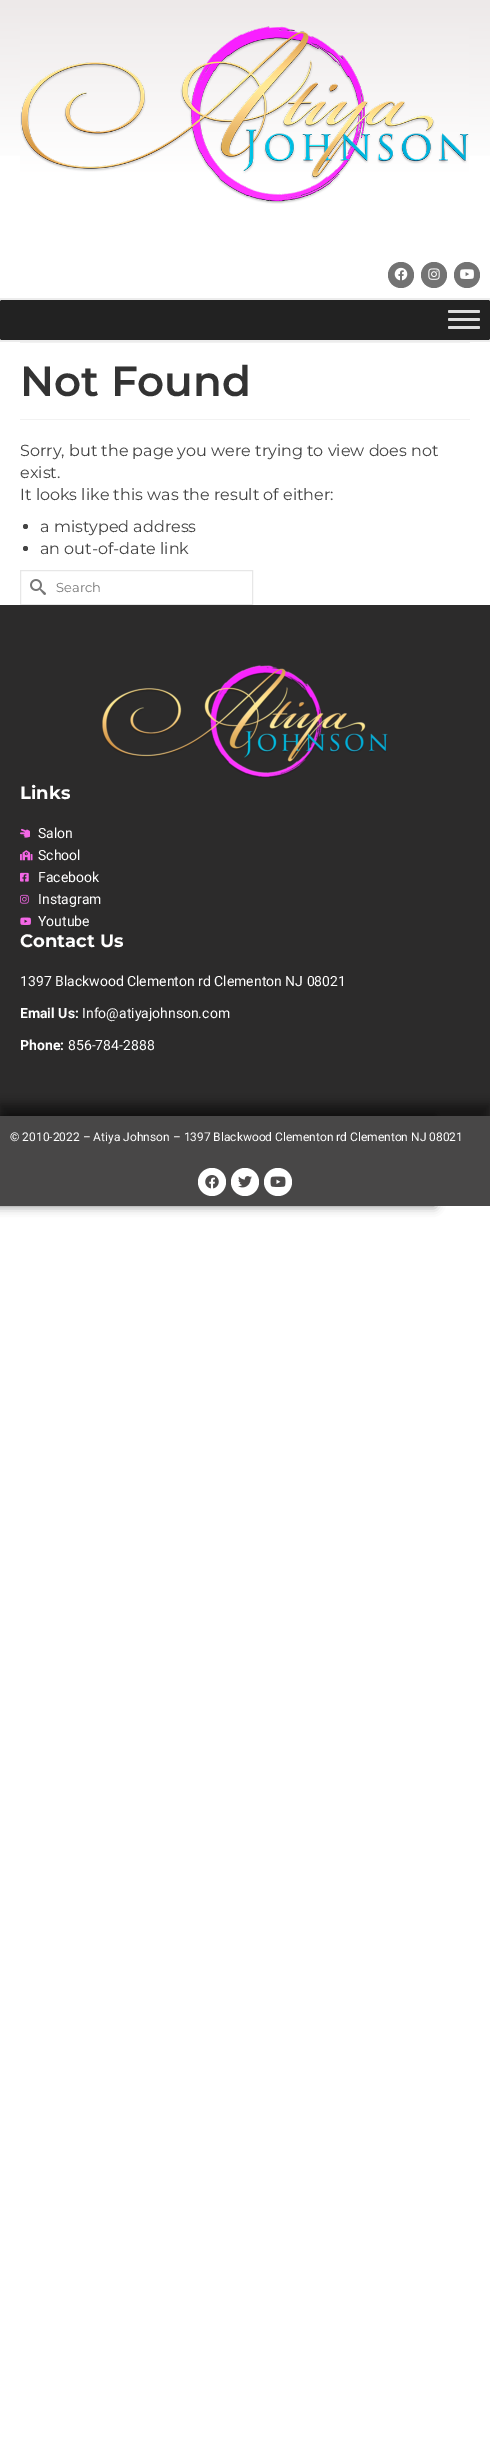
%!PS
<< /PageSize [490 2438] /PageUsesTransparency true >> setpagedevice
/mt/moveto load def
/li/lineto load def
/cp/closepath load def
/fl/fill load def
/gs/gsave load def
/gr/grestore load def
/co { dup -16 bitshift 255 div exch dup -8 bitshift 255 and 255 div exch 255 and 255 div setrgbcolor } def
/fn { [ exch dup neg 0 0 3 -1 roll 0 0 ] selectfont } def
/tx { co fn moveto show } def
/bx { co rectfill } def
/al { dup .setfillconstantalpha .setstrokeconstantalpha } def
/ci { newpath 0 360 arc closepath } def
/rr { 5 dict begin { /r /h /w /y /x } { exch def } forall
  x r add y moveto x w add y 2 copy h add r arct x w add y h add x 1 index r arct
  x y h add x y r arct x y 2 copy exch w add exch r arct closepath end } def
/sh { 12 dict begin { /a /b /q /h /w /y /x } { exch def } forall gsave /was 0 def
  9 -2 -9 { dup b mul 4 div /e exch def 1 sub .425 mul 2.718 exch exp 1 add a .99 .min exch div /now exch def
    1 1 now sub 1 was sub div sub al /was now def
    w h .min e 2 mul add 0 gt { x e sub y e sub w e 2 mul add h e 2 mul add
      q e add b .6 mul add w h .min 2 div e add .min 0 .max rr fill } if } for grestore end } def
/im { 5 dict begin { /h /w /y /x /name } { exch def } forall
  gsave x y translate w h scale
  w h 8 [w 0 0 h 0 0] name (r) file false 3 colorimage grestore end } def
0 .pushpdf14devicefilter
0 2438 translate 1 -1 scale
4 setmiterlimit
0 0 490 2438 16#FFFFFF bx
gs 0 0 mt 490 0 li 490 156 li 0 156 li cp clip newpath
<< /ShadingType 2 /ColorSpace /DeviceRGB /Coords [245 0 245 298] /Extend [true true] /Function << /FunctionType 3 /Domain [0 1] /Functions [<< /FunctionType 2 /Domain [0 1] /C0 [.929 .914 .914] /C1 [1 1 1] /N 1 >> << /FunctionType 2 /Domain [0 1] /C0 [1 1 1] /C1 [1 1 1] /N 1 >>] /Bounds [.59] /Encode [0 1 0 1] >> >> shfill gr
(media/1.raw) 20 26 449 178 im
16#737373 co
401 275 13 ci fl
(media/2.raw) 394 267 14 14 im
434 275 13 ci fl
(media/3.raw) 428 268 12 12 im
467 275 13 ci fl
(media/4.raw) 460 269 14 10 im
0 298 490 2 16#ECECEC bx
0 340 490 2 16#ECECEC bx
16#222222 co
0 300 490 40 2 rr fl
16#DDDDDD co
448 310 32 3 1.5 rr fl
448 318 32 3 1.5 rr fl
448 326 32 3 1.5 rr fl
20 342 450 1 16#F2F2F2 bx
20 419 450 1 16#F2F2F2 bx
16#444444 co
25.5 526.5 2.5 ci fl
25.5 548.5 2.5 ci fl
16#E7E7E7 co
20.5 570.5 232 34 rectstroke
(media/5.raw) 30 579 16 16 im
0 605 490 511 16#2C2B2B bx
(media/6.raw) 102 665 286 113 im
(media/7.raw) 20 828 10 10 im
(media/8.raw) 20 850 13 11 im
(media/9.raw) 20 872 9 10 im
(media/10.raw) 20 894 9 10 im
(media/11.raw) 20 917 11 8 im
16#000000 co
0 1104 490 90 0 5 .5 sh
0 1116 490 90 16#484747 bx
gs
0 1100 mt 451 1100 li 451 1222 li 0 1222 li cp 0 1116 mt 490 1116 li 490 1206 li 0 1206 li cp eoclip newpath
16#000000 co
-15 1116 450 90 0 5 .5 sh
gr
16#FFFFFF co
212 1182 14 ci fl
(media/12.raw) 205 1175 14 14 im
245 1182 14 ci fl
(media/13.raw) 238 1176 14 12 im
278 1182 14 ci fl
(media/14.raw) 270 1176 16 11 im
(Not Found) 20 396 /Montserrat-SemiBold 42 16#333333 tx
(Sorry, but the page you were trying to view does not) 20 456 /Montserrat-Regular 16 16#444444 tx
(exist.) 20 478 /Montserrat-Regular 16 16#444444 tx
(It looks like this was the result of either:) 20 500 /Montserrat-Regular 16 16#444444 tx
(a mistyped address) 40 532 /Montserrat-Regular 16 16#444444 tx
(an out-of-date link) 40 554 /Montserrat-Regular 16 16#444444 tx
(Search) 56 592 /Montserrat-Regular 13 16#757575 tx
(Links) 20 799 /Montserrat-Bold 18 16#FFFFFF tx
(Salon) 38 838 /Roboto-Regular 14 16#FFFFFF tx
(School) 38 860 /Roboto-Regular 14 16#FFFFFF tx
(Facebook) 38 882 /Roboto-Regular 14 16#FFFFFF tx
(Instagram) 38 904 /Roboto-Regular 14 16#FFFFFF tx
(Youtube) 38 926 /Roboto-Regular 14 16#FFFFFF tx
(Contact Us) 20 947 /Montserrat-Bold 18 16#FFFFFF tx
(1397 Blackwood Clementon rd Clementon NJ 08021) 20 986 /Roboto-Regular 14 16#FFFFFF tx
(Email Us:) 20 1018 /Roboto-Bold 14 16#FFFFFF tx
(Info@atiyajohnson.com) 82 1018 /Roboto-Regular 14 16#FFFFFF tx
(Phone:) 20 1050 /Roboto-Bold 14 16#FFFFFF tx
(856-784-2888) 68 1050 /Roboto-Regular 14 16#FFFFFF tx
(© 2010-2022 – Atiya Johnson – 1397 Blackwood Clementon rd Clementon NJ 08021) 10 1141 /Roboto-Regular 12 16#FFFFFF tx
.poppdf14devicefilter showpage
